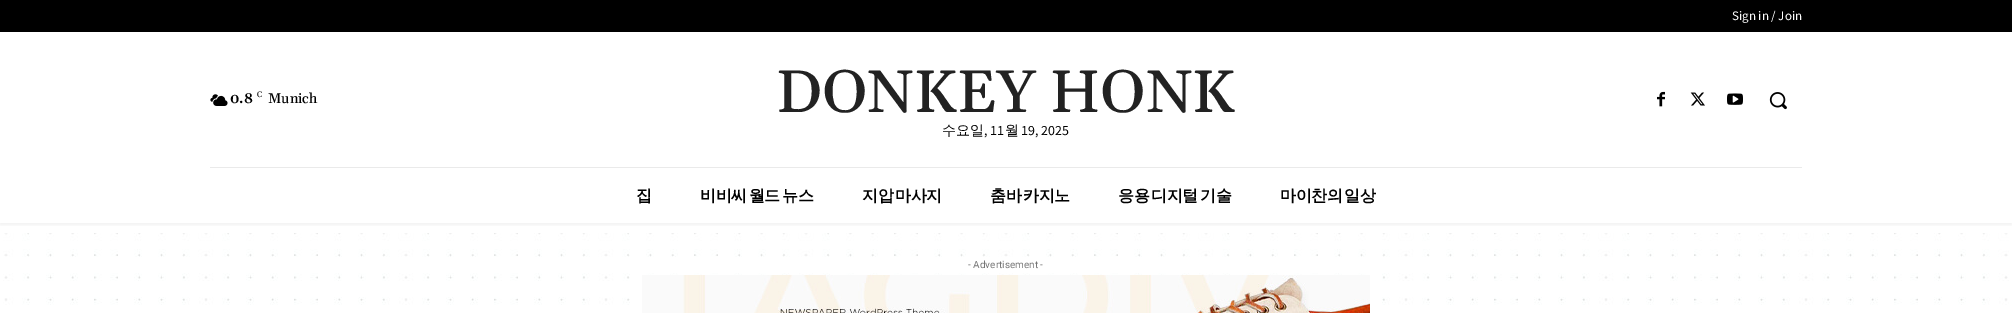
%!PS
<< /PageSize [2012 313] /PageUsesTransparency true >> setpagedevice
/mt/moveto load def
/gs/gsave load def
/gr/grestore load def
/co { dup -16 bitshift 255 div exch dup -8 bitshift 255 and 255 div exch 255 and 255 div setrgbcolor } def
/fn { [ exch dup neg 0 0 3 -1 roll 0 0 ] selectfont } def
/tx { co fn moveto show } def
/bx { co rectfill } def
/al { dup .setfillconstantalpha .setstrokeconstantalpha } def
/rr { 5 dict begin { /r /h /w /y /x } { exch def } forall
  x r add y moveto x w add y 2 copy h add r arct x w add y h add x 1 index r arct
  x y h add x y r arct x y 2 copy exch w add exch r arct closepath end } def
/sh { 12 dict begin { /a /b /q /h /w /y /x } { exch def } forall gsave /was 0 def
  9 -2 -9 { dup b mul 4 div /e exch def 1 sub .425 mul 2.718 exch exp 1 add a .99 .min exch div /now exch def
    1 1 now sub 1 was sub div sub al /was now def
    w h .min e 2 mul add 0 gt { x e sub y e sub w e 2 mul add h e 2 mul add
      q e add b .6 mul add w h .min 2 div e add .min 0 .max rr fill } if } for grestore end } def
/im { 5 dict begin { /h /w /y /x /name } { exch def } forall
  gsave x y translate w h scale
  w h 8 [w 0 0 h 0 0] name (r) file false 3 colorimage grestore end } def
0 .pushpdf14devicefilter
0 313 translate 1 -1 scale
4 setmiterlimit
0 0 2012 313 16#FFFFFF bx
0 0 2012 32 16#000000 bx
(media/1.raw) 210 94 18 12 im
(media/2.raw) 1657 91 8 16 im
(media/3.raw) 1690 92 15 14 im
(media/4.raw) 1727 93 16 12 im
(media/5.raw) 1769 92 18 18 im
210 167 1592 1 16#EAEAEA bx
gs
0 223 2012 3 rectclip
16#000000 co
0 139 2012 86 0 2 .06 sh
gr
(media/6.raw) 3 233 2006 72 im
(media/7.raw) 642 275 728 38 im
(Sign in / Join) 1732 20 /SourceSansPro-Regular 13 16#FFFFFF tx
(0.8) 230 103 /Gelasio-SemiBold 14 16#000000 tx
(C) 257 97 /Gelasio-Regular 8 16#000000 tx
(Munich) 268 103 /Gelasio-Medium 14 16#000000 tx
(DONKEY HONK) 776 112 /Gelasio-Medium 60 16#222222 tx
(수요일) 942 135 /WenQuanYiZenHei-Medium 14 16#000000 tx
(, 11) 984 135 /SourceSansPro-Regular 14 16#000000 tx
(월) 1005 135 /WenQuanYiZenHei-Medium 14 16#000000 tx
(19, 2025) 1021 135 /SourceSansPro-Regular 14 16#000000 tx
/WenQuanYiZenHei-Bold 16 fn
636 201 mt -.5 0 (집) ashow
700 201 mt -2 0 32 -.5 0 (비비씨 월드 뉴스) awidthshow
862 201 mt -2 0 32 -.5 0 (지압 마사지) awidthshow
990 201 mt -2 0 32 -.5 0 (춤바 카지노) awidthshow
1118 201 mt -2 0 32 -.5 0 (응용 디지털 기술) awidthshow
1280 201 mt -2 0 32 -.5 0 (마이찬의 일상) awidthshow
(- Advertisement -) 968 268 /Roboto-Regular 10 16#767676 tx
.poppdf14devicefilter showpage
